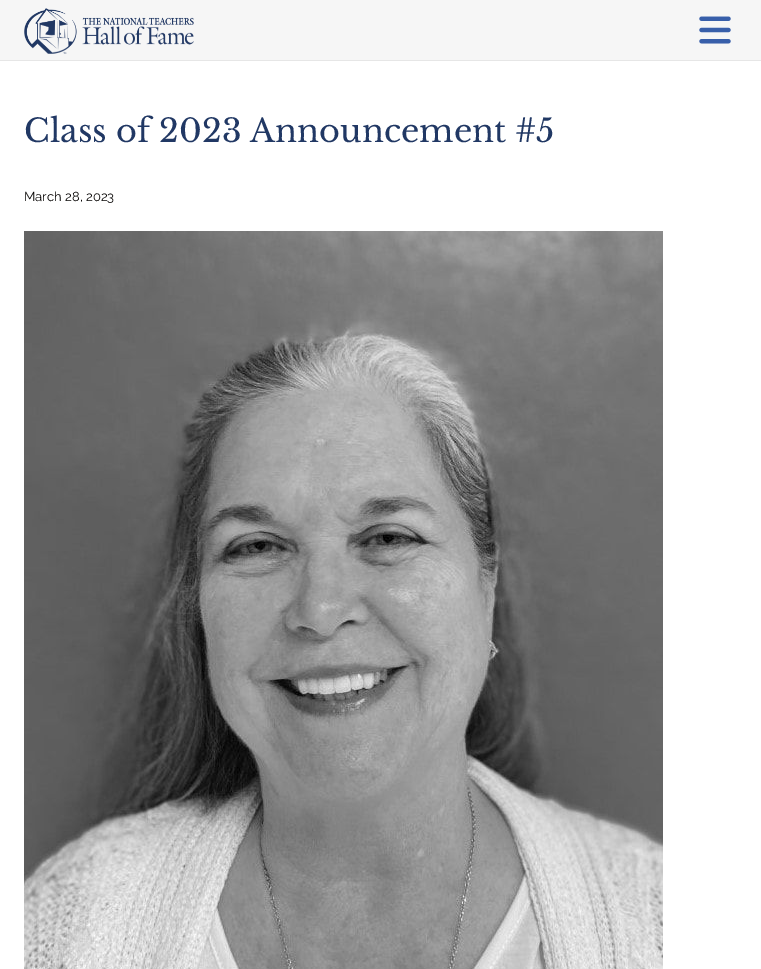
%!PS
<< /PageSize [761 969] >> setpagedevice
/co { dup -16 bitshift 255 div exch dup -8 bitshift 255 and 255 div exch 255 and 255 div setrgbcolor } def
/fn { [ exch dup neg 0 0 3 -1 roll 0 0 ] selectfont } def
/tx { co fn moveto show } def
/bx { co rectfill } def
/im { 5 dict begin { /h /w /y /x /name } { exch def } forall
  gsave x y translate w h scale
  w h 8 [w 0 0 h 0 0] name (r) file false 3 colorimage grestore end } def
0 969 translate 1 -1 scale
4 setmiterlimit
0 0 761 969 16#FFFFFF bx
0 60 761 1 16#E6E6E6 bx
0 0 761 60 16#F6F6F6 bx
(media/1.raw) 24 8 170 46 im
(media/2.raw) 699 16 32 28 im
(media/3.raw) 24 231 639 738 im
(Class of 2023 Announcement #5) 24 142 /LibreBaskerville-Regular 32 16#213864 tx
(March 28, 2023) 24 201 /Raleway-Thin 13 16#080605 tx
showpage
